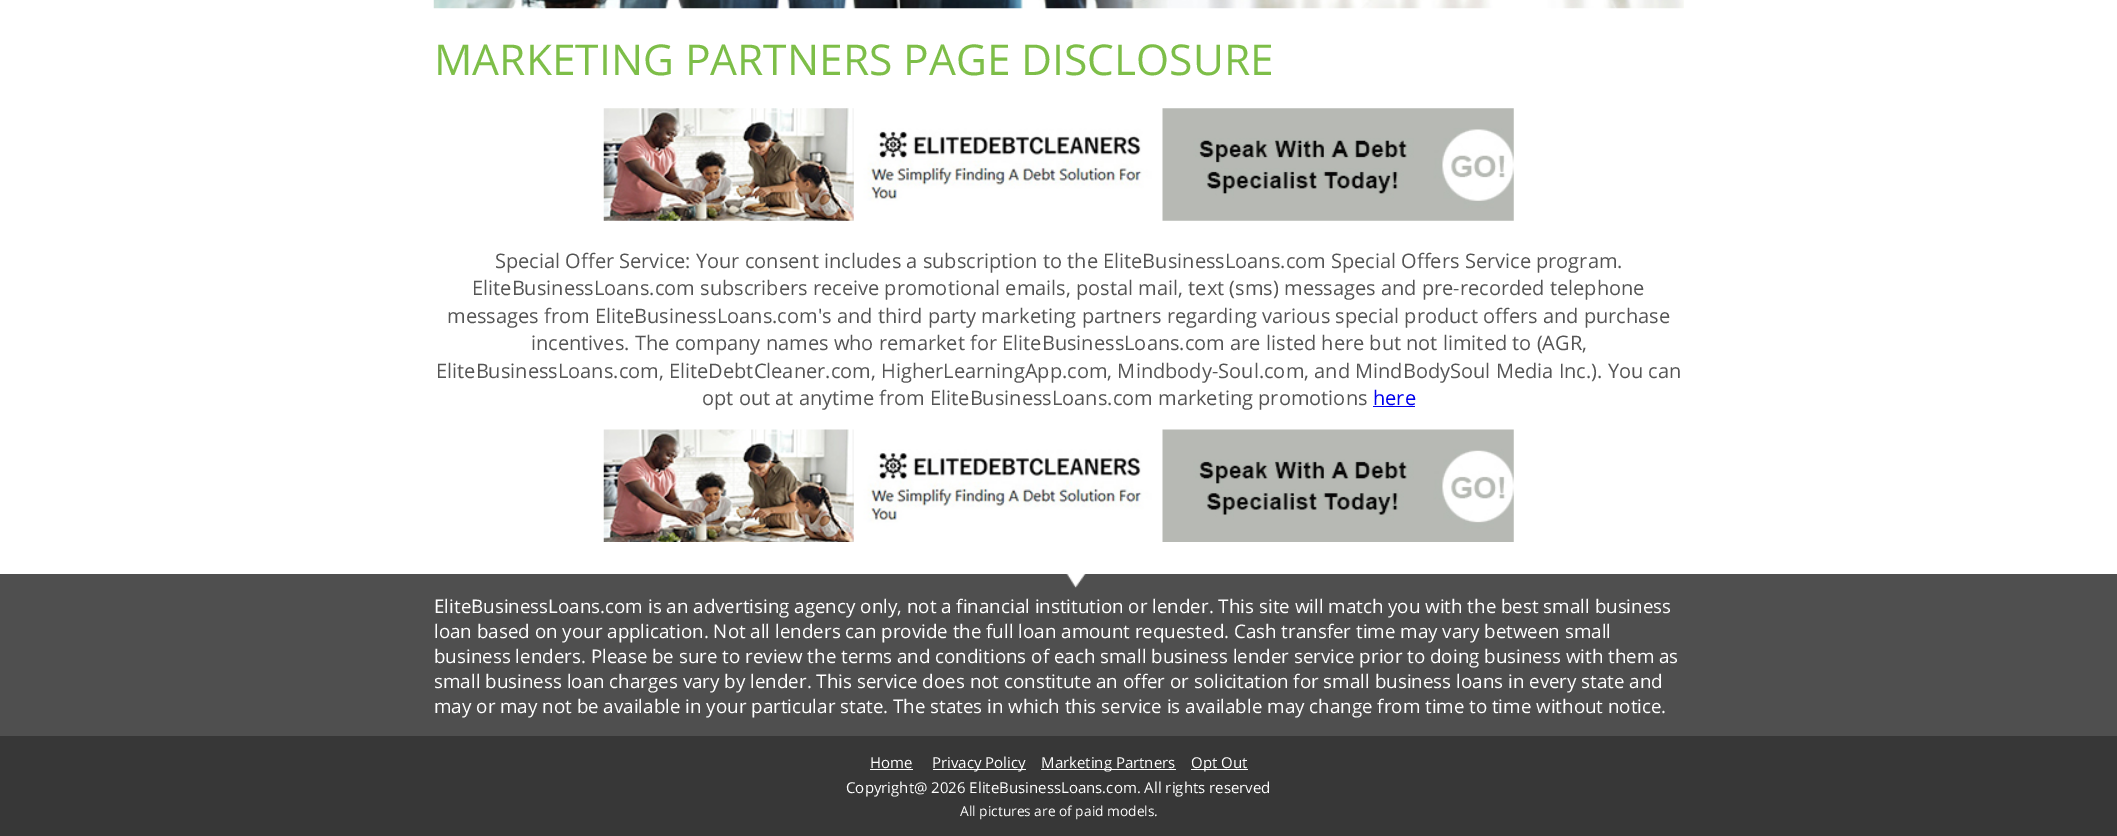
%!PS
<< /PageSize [2117 836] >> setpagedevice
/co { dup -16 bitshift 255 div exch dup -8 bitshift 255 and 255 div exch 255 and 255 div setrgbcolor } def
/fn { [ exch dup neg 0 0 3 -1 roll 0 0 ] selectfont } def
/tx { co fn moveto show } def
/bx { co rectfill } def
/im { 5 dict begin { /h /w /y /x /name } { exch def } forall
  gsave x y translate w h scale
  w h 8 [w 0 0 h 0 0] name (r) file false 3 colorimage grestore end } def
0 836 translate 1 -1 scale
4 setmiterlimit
0 0 2117 836 16#FFFFFF bx
(media/1.raw) 433 0 1251 9 im
(media/2.raw) 603 108 911 113 im
1373 406 42 1 16#0000EE bx
(media/3.raw) 603 429 911 113 im
0 574 2117 162 16#4F4F4F bx
(media/4.raw) 1066 574 20 14 im
0 736 2117 100 16#373737 bx
870 769 43 1 16#FFFFFF bx
933 769 93 1 16#FFFFFF bx
1041 769 135 1 16#FFFFFF bx
1191 769 57 1 16#FFFFFF bx
(MARKETING PARTNERS PAGE DISCLOSURE) 434 75 /OpenSans-Regular 42.5 16#7DBE48 tx
(Special Offer Service: Your consent includes a subscription to the EliteBusinessLoans.com Special Offers Service program.) 495 268 /OpenSans-Regular 20 16#555555 tx
(EliteBusinessLoans.com subscribers receive promotional emails, postal mail, text \(sms\) messages and pre-recorded telephone) 472 295 /OpenSans-Regular 20 16#555555 tx
(messages from EliteBusinessLoans.com's and third party marketing partners regarding various special product offers and purchase) 447 323 /OpenSans-Regular 20 16#555555 tx
(incentives. The company names who remarket for EliteBusinessLoans.com are listed here but not limited to \(AGR,) 531 350 /OpenSans-Regular 20 16#555555 tx
(EliteBusinessLoans.com, EliteDebtCleaner.com, HigherLearningApp.com, Mindbody-Soul.com, and MindBodySoul Media Inc.\). You can) 436 378 /OpenSans-Regular 20 16#555555 tx
(opt out at anytime from EliteBusinessLoans.com marketing promotions) 702 405 /OpenSans-Regular 20 16#555555 tx
(here) 1373 405 /OpenSans-Regular 20 16#0000EE tx
(EliteBusinessLoans.com is an advertising agency only, not a financial institution or lender. This site will match you with the best small business) 434 613 /OpenSans-Regular 18.75 16#FFFFFF tx
(loan based on your application. Not all lenders can provide the full loan amount requested. Cash transfer time may vary between small) 434 638 /OpenSans-Regular 18.75 16#FFFFFF tx
(business lenders. Please be sure to review the terms and conditions of each small business lender service prior to doing business with them as) 434 663 /OpenSans-Regular 18.75 16#FFFFFF tx
(small business loan charges vary by lender. This service does not constitute an offer or solicitation for small business loans in every state and) 434 688 /OpenSans-Regular 18.75 16#FFFFFF tx
(may or may not be available in your particular state. The states in which this service is available may change from time to time without notice.) 434 713 /OpenSans-Regular 18.75 16#FFFFFF tx
(Home) 870 768 /OpenSans-Regular 15 16#FFFFFF tx
(Privacy Policy) 932 768 /OpenSans-Regular 15 16#FFFFFF tx
(Marketing Partners) 1041 768 /OpenSans-Regular 15 16#FFFFFF tx
(Opt Out) 1191 768 /OpenSans-Regular 15 16#FFFFFF tx
(Copyright@ 2026 EliteBusinessLoans.com. All rights reserved) 846 793 /OpenSans-Regular 15 16#FFFFFF tx
(All pictures are of paid models.) 960 816 /OpenSans-Regular 13.75 16#FFFFFF tx
showpage
